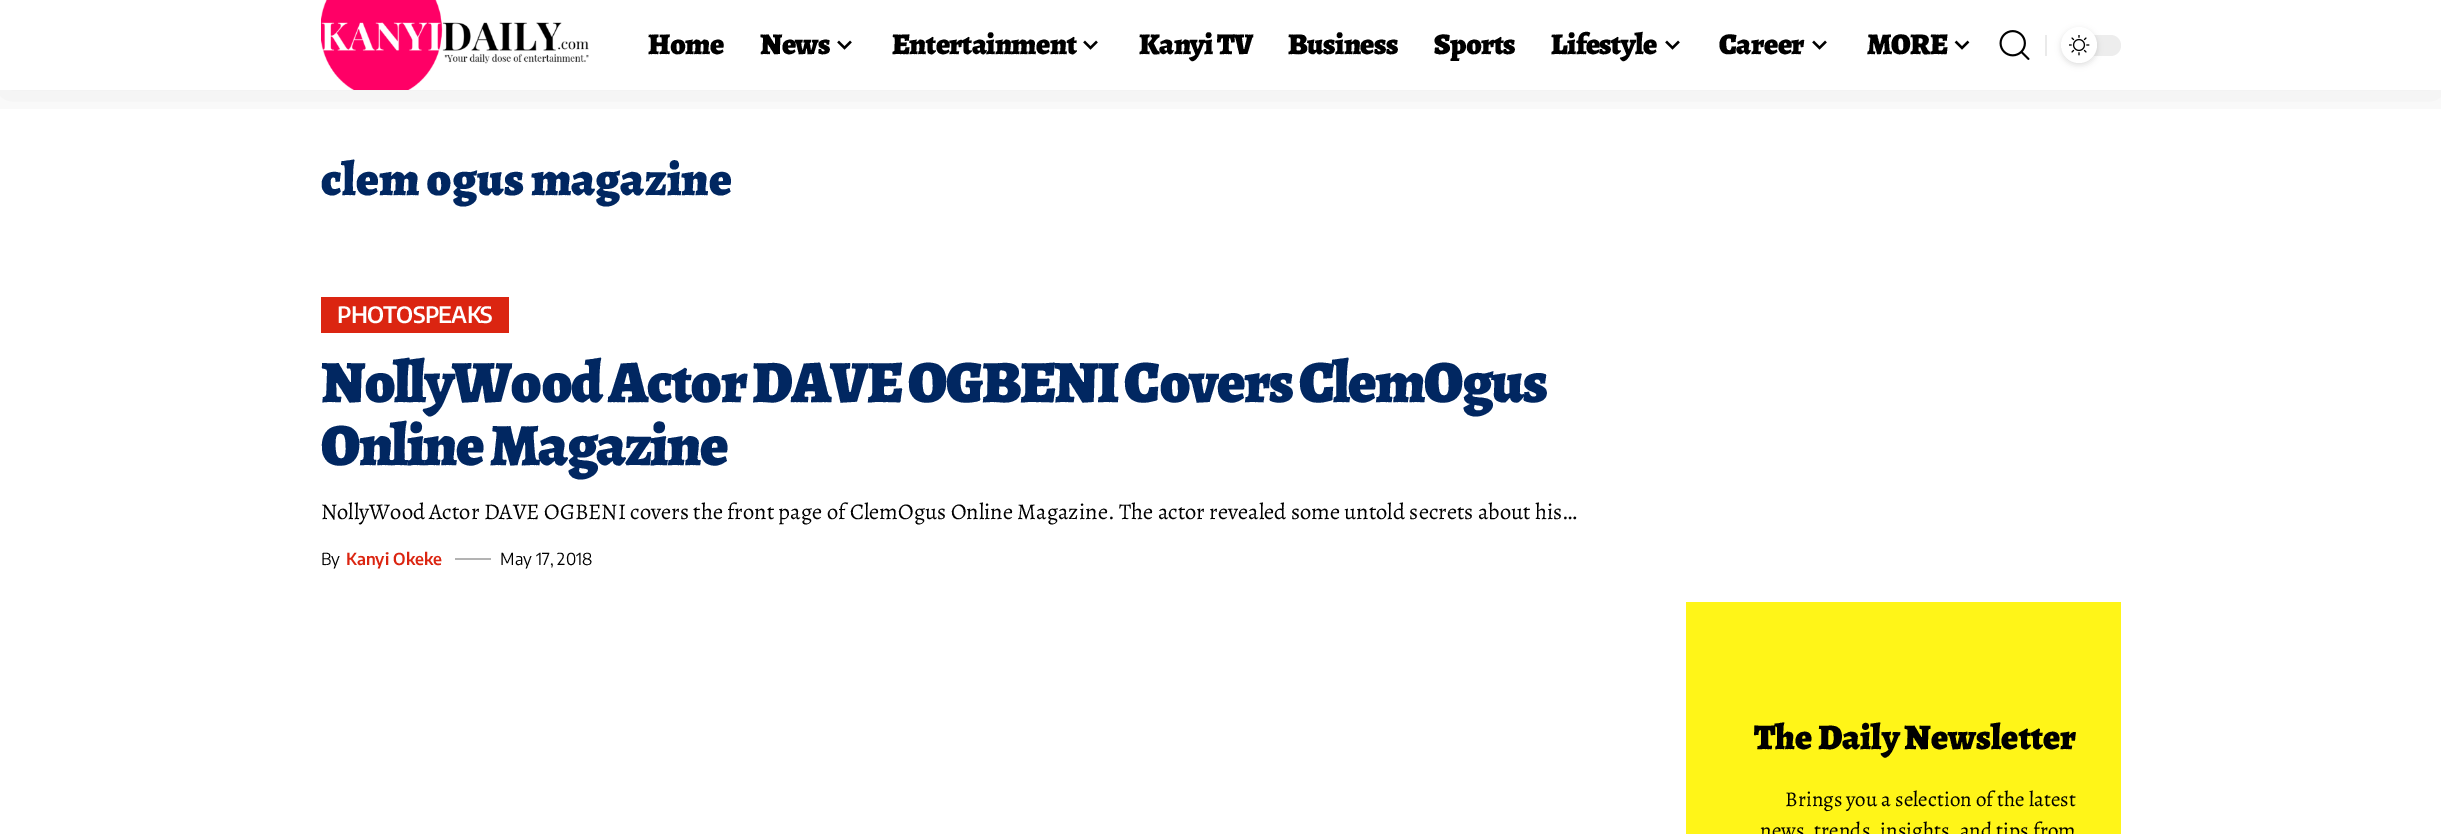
%!PS
<< /PageSize [2441 834] /PageUsesTransparency true >> setpagedevice
/mt/moveto load def
/fl/fill load def
/gs/gsave load def
/gr/grestore load def
/co { dup -16 bitshift 255 div exch dup -8 bitshift 255 and 255 div exch 255 and 255 div setrgbcolor } def
/fn { [ exch dup neg 0 0 3 -1 roll 0 0 ] selectfont } def
/tx { co fn moveto show } def
/bx { co rectfill } def
/al { dup .setfillconstantalpha .setstrokeconstantalpha } def
/ci { newpath 0 360 arc closepath } def
/rr { 5 dict begin { /r /h /w /y /x } { exch def } forall
  x r add y moveto x w add y 2 copy h add r arct x w add y h add x 1 index r arct
  x y h add x y r arct x y 2 copy exch w add exch r arct closepath end } def
/sh { 12 dict begin { /a /b /q /h /w /y /x } { exch def } forall gsave /was 0 def
  9 -2 -9 { dup b mul 4 div /e exch def 1 sub .425 mul 2.718 exch exp 1 add a .99 .min exch div /now exch def
    1 1 now sub 1 was sub div sub al /was now def
    w h .min e 2 mul add 0 gt { x e sub y e sub w e 2 mul add h e 2 mul add
      q e add b .6 mul add w h .min 2 div e add .min 0 .max rr fill } if } for grestore end } def
/im { 5 dict begin { /h /w /y /x /name } { exch def } forall
  gsave x y translate w h scale
  w h 8 [w 0 0 h 0 0] name (r) file false 3 colorimage grestore end } def
0 .pushpdf14devicefilter
0 834 translate 1 -1 scale
4 setmiterlimit
0 0 2441 834 16#FFFFFF bx
gs
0 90 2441 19 rectclip
16#000000 co
0 6 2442 90 0 22.5 .07 sh
gr
(media/1.raw) 321 0 268 90 im
(media/2.raw) 837 40 15 10 im
(media/2.raw) 1083 40 15 10 im
(media/2.raw) 1665 40 15 10 im
(media/2.raw) 1812 40 15 10 im
(media/3.raw) 1954 40 16 10 im
(media/4.raw) 1999 30 31 30 im
2045 35 2 21 16#EAEAEA bx
16#EDEDED co
2061 35 60 21 10.5 rr fl
16#000000 co
2061 29 36 36 18 3 .12 sh
16#FFFFFF co
2079 45 18 ci fl
(media/5.raw) 2069 35 21 21 im
321 297 188 36 16#DB2511 bx
455 558 36 2 16#B3B3B3 bx
1686 602 435 232 16#FFF518 bx
/Alegreya-Black 30 fn
16#000000 co
648 54 mt -.6 0 (Home) ashow
760 54 mt -.6 0 (News) ashow
892 54 mt -.6 0 (Entertainment) ashow
1139 54 mt -.6 0 (Kanyi TV) ashow
1288 54 mt -.6 0 (Business) ashow
1434 54 mt -.6 0 (Sports) ashow
1551 54 mt -.6 0 (Lifestyle) ashow
1719 54 mt -.6 0 (Career) ashow
1867 54 mt -.6 0 (MORE) ashow
(clem ogus magazine) 321 195 /Alegreya-Black 48 16#012761 tx
/EncodeSansCondensed-SemiBold 22.5 fn
16#FFFFFF co
337 323 mt -.75 0 (PHOTOSPEAKS) ashow
/Alegreya-Black 60 fn
16#012761 co
321 402 mt -1.8 0 (NollyWood Actor DAVE OGBENI Covers ClemOgus) ashow
321 465 mt -1.8 0 (Online Magazine) ashow
(NollyWood Actor DAVE OGBENI covers the front page of ClemOgus Online Magazine. The actor revealed some untold secrets about his…) 321 519 /Alegreya-Regular 22.5 16#000000 tx
(By) 321 565 /EncodeSansCondensed-Regular 16.5 16#000000 tx
(Kanyi Okeke) 346 565 /EncodeSansCondensed-SemiBold 16.5 16#DB2511 tx
(May 17, 2018) 500 565 /EncodeSansCondensed-Regular 16.5 16#000000 tx
(The Daily Newsletter) 1754 749 /Alegreya-Black 36 16#000000 tx
(Brings you a selection of the latest) 1785 806 /Alegreya-Regular 21 16#000000 tx
(news, trends, insights, and tips from) 1760 837 /Alegreya-Regular 21 16#000000 tx
.poppdf14devicefilter showpage
